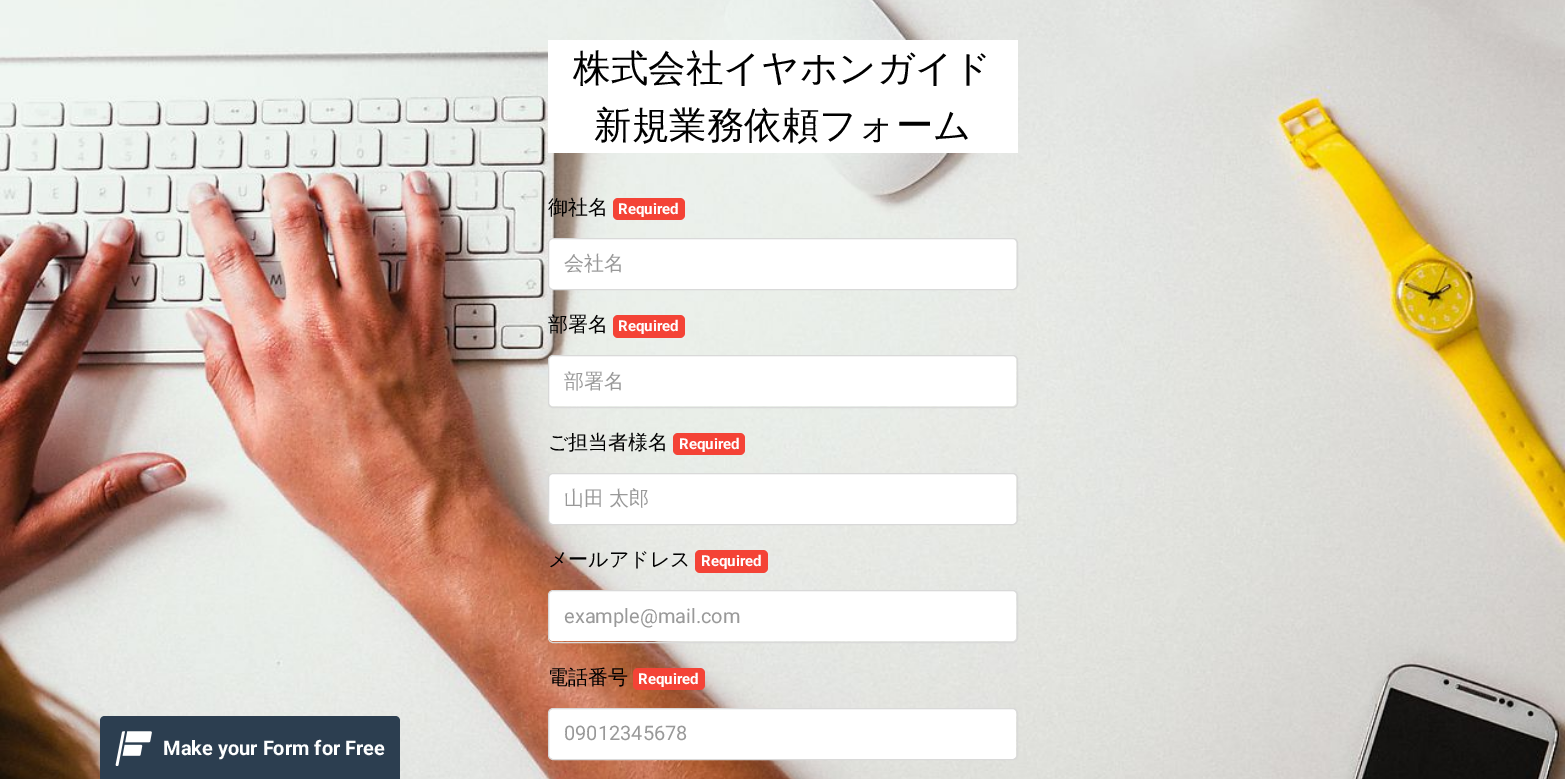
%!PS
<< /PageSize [1565 779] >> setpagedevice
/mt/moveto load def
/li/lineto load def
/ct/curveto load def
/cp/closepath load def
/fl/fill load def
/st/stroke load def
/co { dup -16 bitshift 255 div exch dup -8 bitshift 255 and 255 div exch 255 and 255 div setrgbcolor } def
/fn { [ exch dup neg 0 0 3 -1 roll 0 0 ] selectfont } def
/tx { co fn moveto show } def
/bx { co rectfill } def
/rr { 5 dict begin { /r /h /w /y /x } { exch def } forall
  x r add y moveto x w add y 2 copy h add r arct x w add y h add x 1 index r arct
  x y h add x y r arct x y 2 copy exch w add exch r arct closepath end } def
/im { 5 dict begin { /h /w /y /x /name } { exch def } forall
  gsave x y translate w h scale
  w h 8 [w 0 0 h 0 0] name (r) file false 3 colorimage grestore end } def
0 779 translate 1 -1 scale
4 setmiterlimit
0 0 1565 779 16#FFFFFF bx
(media/1.raw) 0 0 1565 779 im
548 40 470 113 16#FFFFFF bx
16#F44336 co
613 198 72 22 5 rr fl
16#FFFFFF co
549 239 467 50 4 rr fl
16#D9D9D9 co
548.5 238.5 469 51 4.5 rr st
16#F44336 co
613 315 72 23 5 rr fl
16#FFFFFF co
549 356 467 50 4 rr fl
16#D9D9D9 co
548.5 355.5 469 52 4.5 rr st
16#F44336 co
673 433 72 22 5 rr fl
16#FFFFFF co
549 474 467 50 4 rr fl
16#D9D9D9 co
548.5 473.5 469 51 4.5 rr st
16#F44336 co
695 550 73 23 5 rr fl
16#FFFFFF co
549 591 467 50 4 rr fl
16#D9D9D9 co
548.5 590.5 469 52 4.5 rr st
16#F44336 co
633 668 72 22 5 rr fl
16#FFFFFF co
549 709 467 50 4 rr fl
16#D9D9D9 co
548.5 708.5 469 51 4.5 rr st
16#2C3E50 co
105 716 mt 395 716 li 398 716 400 718 400 721 ct 400 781 li 100 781 li 100 721 li 100 718 102 716 105 716 ct cp fl
(media/2.raw) 115 731 37 35 im
(株式会社イヤホンガイド) 573 81 /WenQuanYiZenHei-Medium 37.5 16#000000 tx
(新規業務依頼フォーム) 594 138 /WenQuanYiZenHei-Medium 37.5 16#000000 tx
(御社名) 548 214 /WenQuanYiZenHei-Medium 20 16#000000 tx
(Required) 618 214 /Roboto-Bold 15 16#FFFFFF tx
(会社名) 564 270 /WenQuanYiZenHei-Medium 20 16#999999 tx
(部署名) 548 331 /WenQuanYiZenHei-Medium 20 16#000000 tx
(Required) 618 331 /Roboto-Bold 15 16#FFFFFF tx
(部署名) 564 388 /WenQuanYiZenHei-Medium 20 16#999999 tx
(ご担当者様名) 548 449 /WenQuanYiZenHei-Medium 20 16#000000 tx
(Required) 679 449 /Roboto-Bold 15 16#FFFFFF tx
/WenQuanYiZenHei-Medium 20 fn
16#999999 co
564 505 mt -1 0 32 (山田 太郎) widthshow
(メールアドレス) 548 566 /WenQuanYiZenHei-Medium 20 16#000000 tx
(Required) 701 566 /Roboto-Bold 15 16#FFFFFF tx
(example@mail.com) 564 623 /Roboto-Regular 20 16#999999 tx
(電話番号) 548 684 /WenQuanYiZenHei-Medium 20 16#000000 tx
(Required) 638 684 /Roboto-Bold 15 16#FFFFFF tx
(09012345678) 564 740 /Roboto-Regular 20 16#999999 tx
(Make your Form for Free) 163 755 /Roboto-Bold 20 16#FFFFFF tx
showpage
